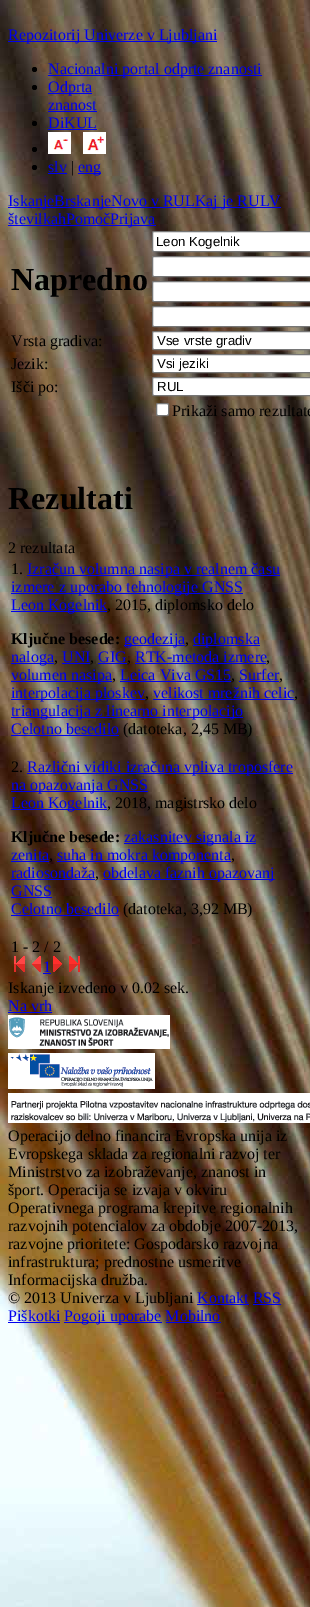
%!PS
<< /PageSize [310 1607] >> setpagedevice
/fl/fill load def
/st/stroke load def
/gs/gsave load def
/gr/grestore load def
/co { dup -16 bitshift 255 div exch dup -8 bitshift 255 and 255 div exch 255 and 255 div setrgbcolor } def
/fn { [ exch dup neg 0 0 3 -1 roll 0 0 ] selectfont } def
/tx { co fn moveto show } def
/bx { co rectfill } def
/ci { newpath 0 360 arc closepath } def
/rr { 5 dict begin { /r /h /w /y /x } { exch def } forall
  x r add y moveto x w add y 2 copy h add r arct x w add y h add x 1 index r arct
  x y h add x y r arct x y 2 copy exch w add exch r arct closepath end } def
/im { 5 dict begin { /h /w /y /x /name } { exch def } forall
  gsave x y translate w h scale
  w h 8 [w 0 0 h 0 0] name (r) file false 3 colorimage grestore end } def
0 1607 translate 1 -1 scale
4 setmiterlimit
0 0 310 1607 16#FFFFFF bx
(media/1.raw) 0 0 310 1607 im
8 41 209 1 16#0000EE bx
16#000000 co
34.5 69.5 2.5 ci fl
48 75 214 1 16#0000EE bx
16#000000 co
34.5 87.5 2.5 ci fl
48 93 44 1 16#0000EE bx
48 111 49 1 16#0000EE bx
16#000000 co
34.5 123.5 2.5 ci fl
48 129 49 1 16#0000EE bx
16#000000 co
34.5 149.5 2.5 ci fl
(media/2.raw) 48 132 23 22 im
(media/3.raw) 83 132 23 22 im
34.5 167.5 2.5 ci fl
48 173 19 1 16#0000EE bx
78 173 23 1 16#0000EE bx
8 207 273 1 16#0000EE bx
8 225 148 1 16#0000EE bx
16#FFFFFF co
152.5 231.5 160 20 1.5 rr gs fl gr
16#767676 co
st
16#FFFFFF co
152.5 256.5 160 20 1.5 rr gs fl gr
16#767676 co
st
16#FFFFFF co
152.5 281.5 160 20 1.5 rr gs fl gr
16#767676 co
st
16#FFFFFF co
152.5 306.5 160 20 1.5 rr gs fl gr
16#767676 co
st
16#FFFFFF co
152.5 331.5 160 18 1.5 rr gs fl gr
16#767676 co
st
16#FFFFFF co
152.5 354.5 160 18 1.5 rr gs fl gr
16#767676 co
st
16#FFFFFF co
152.5 377.5 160 18 1.5 rr gs fl gr
16#767676 co
st
16#FFFFFF co
156.5 403.5 12 12 1.5 rr gs fl gr
16#767676 co
st
27 575 253 1 16#0000EE bx
11 593 232 1 16#0000EE bx
11 611 96 1 16#0000EE bx
124 645 61 1 16#0000EE bx
193 645 67 1 16#0000EE bx
11 663 43 1 16#0000EE bx
62 663 28 1 16#0000EE bx
98 663 29 1 16#0000EE bx
135 663 131 1 16#0000EE bx
11 681 101 1 16#0000EE bx
120 681 111 1 16#0000EE bx
239 681 40 1 16#0000EE bx
11 699 134 1 16#0000EE bx
153 699 141 1 16#0000EE bx
11 717 232 1 16#0000EE bx
11 735 108 1 16#0000EE bx
27 773 266 1 16#0000EE bx
11 791 137 1 16#0000EE bx
11 809 96 1 16#0000EE bx
124 843 132 1 16#0000EE bx
11 861 38 1 16#0000EE bx
57 861 174 1 16#0000EE bx
11 879 84 1 16#0000EE bx
103 879 172 1 16#0000EE bx
11 897 41 1 16#0000EE bx
11 915 108 1 16#0000EE bx
(media/4.raw) 14 956 11 16 im
(media/5.raw) 32 956 9 16 im
43 973 8 1 16#0000EE bx
(media/6.raw) 53 956 9 16 im
(media/7.raw) 69 956 11 16 im
8 1012 44 1 16#0000EE bx
(media/8.raw) 8 1015 162 34 im
(media/9.raw) 8 1053 147 36 im
(media/10.raw) 8 1093 302 30 im
197 1304 52 1 16#0000EE bx
253 1304 28 1 16#0000EE bx
8 1322 52 1 16#0000EE bx
64 1322 98 1 16#0000EE bx
166 1322 55 1 16#0000EE bx
(Repozitorij Univerze v Ljubljani) 8 40 /LiberationSerif-Regular 16 16#0000EE tx
(Nacionalni portal odprte znanosti) 48 74 /LiberationSerif-Regular 16 16#0000EE tx
(Odprta) 48 92 /LiberationSerif-Regular 16 16#0000EE tx
(znanost) 48 110 /LiberationSerif-Regular 16 16#0000EE tx
(DiKUL) 48 128 /LiberationSerif-Regular 16 16#0000EE tx
(slv) 48 172 /LiberationSerif-Regular 16 16#0000EE tx
(|) 71 172 /LiberationSerif-Regular 16 16#000000 tx
(eng) 78 172 /LiberationSerif-Regular 16 16#0000EE tx
(IskanjeBrskanjeNovo v RULKaj je RULV) 8 206 /LiberationSerif-Regular 16 16#0000EE tx
(številkahPomočPrijava) 8 224 /LiberationSerif-Regular 16 16#0000EE tx
(Leon Kogelnik) 156 246 /LiberationSans-Regular 13.25 16#000000 tx
(Napredno) 11 290 /LiberationSerif-Bold 32 16#000000 tx
(Vrsta gradiva:) 11 346 /LiberationSerif-Regular 16 16#000000 tx
(Vse vrste gradiv) 157 345 /LiberationSans-Regular 13.25 16#000000 tx
(Jezik:) 11 369 /LiberationSerif-Regular 16 16#000000 tx
(Vsi jeziki) 157 368 /LiberationSans-Regular 13.25 16#000000 tx
(Išči po:) 11 392 /LiberationSerif-Regular 16 16#000000 tx
(RUL) 157 391 /LiberationSans-Regular 13.25 16#000000 tx
(Prikaži samo rezultate) 172 416 /LiberationSerif-Regular 16 16#000000 tx
(Rezultati) 8 509 /LiberationSerif-Bold 32 16#000000 tx
(2 rezultata) 8 553 /LiberationSerif-Regular 16 16#000000 tx
(1.) 11 574 /LiberationSerif-Regular 16 16#000000 tx
(Izračun volumna nasipa v realnem času) 27 574 /LiberationSerif-Regular 16 16#0000EE tx
(izmere z uporabo tehnologije GNSS) 11 592 /LiberationSerif-Regular 16 16#0000EE tx
(Leon Kogelnik) 11 610 /LiberationSerif-Regular 16 16#0000EE tx
(, 2015, diplomsko delo) 107 610 /LiberationSerif-Regular 16 16#000000 tx
(Ključne besede:) 11 644 /LiberationSerif-Bold 16 16#000000 tx
(geodezija) 124 644 /LiberationSerif-Regular 16 16#0000EE tx
(,) 185 644 /LiberationSerif-Regular 16 16#000000 tx
(diplomska) 193 644 /LiberationSerif-Regular 16 16#0000EE tx
(naloga) 11 662 /LiberationSerif-Regular 16 16#0000EE tx
(,) 54 662 /LiberationSerif-Regular 16 16#000000 tx
(UNI) 62 662 /LiberationSerif-Regular 16 16#0000EE tx
(,) 90 662 /LiberationSerif-Regular 16 16#000000 tx
(GIG) 98 662 /LiberationSerif-Regular 16 16#0000EE tx
(,) 127 662 /LiberationSerif-Regular 16 16#000000 tx
(RTK-metoda izmere) 135 662 /LiberationSerif-Regular 16 16#0000EE tx
(,) 266 662 /LiberationSerif-Regular 16 16#000000 tx
(volumen nasipa) 11 680 /LiberationSerif-Regular 16 16#0000EE tx
(,) 112 680 /LiberationSerif-Regular 16 16#000000 tx
(Leica Viva GS15) 120 680 /LiberationSerif-Regular 16 16#0000EE tx
(,) 231 680 /LiberationSerif-Regular 16 16#000000 tx
(Surfer) 239 680 /LiberationSerif-Regular 16 16#0000EE tx
(,) 279 680 /LiberationSerif-Regular 16 16#000000 tx
(interpolacija ploskev) 11 698 /LiberationSerif-Regular 16 16#0000EE tx
(,) 145 698 /LiberationSerif-Regular 16 16#000000 tx
(velikost mrežnih celic) 153 698 /LiberationSerif-Regular 16 16#0000EE tx
(,) 294 698 /LiberationSerif-Regular 16 16#000000 tx
(triangulacija z linearno interpolacijo) 11 716 /LiberationSerif-Regular 16 16#0000EE tx
(Celotno besedilo) 11 734 /LiberationSerif-Regular 16 16#0000EE tx
(\(datoteka, 2,45 MB\)) 123 734 /LiberationSerif-Regular 16 16#000000 tx
(2.) 11 772 /LiberationSerif-Regular 16 16#000000 tx
(Različni vidiki izračuna vpliva troposfere) 27 772 /LiberationSerif-Regular 16 16#0000EE tx
(na opazovanja GNSS) 11 790 /LiberationSerif-Regular 16 16#0000EE tx
(Leon Kogelnik) 11 808 /LiberationSerif-Regular 16 16#0000EE tx
(, 2018, magistrsko delo) 107 808 /LiberationSerif-Regular 16 16#000000 tx
(Ključne besede:) 11 842 /LiberationSerif-Bold 16 16#000000 tx
(zakasnitev signala iz) 124 842 /LiberationSerif-Regular 16 16#0000EE tx
(zenita) 11 860 /LiberationSerif-Regular 16 16#0000EE tx
(,) 49 860 /LiberationSerif-Regular 16 16#000000 tx
(suha in mokra komponenta) 57 860 /LiberationSerif-Regular 16 16#0000EE tx
(,) 231 860 /LiberationSerif-Regular 16 16#000000 tx
(radiosondaža) 11 878 /LiberationSerif-Regular 16 16#0000EE tx
(,) 95 878 /LiberationSerif-Regular 16 16#000000 tx
(obdelava faznih opazovanj) 103 878 /LiberationSerif-Regular 16 16#0000EE tx
(GNSS) 11 896 /LiberationSerif-Regular 16 16#0000EE tx
(Celotno besedilo) 11 914 /LiberationSerif-Regular 16 16#0000EE tx
(\(datoteka, 3,92 MB\)) 123 914 /LiberationSerif-Regular 16 16#000000 tx
(1 - 2 / 2) 11 952 /LiberationSerif-Regular 16 16#000000 tx
(1) 43 972 /LiberationSerif-Regular 16 16#0000EE tx
(Iskanje izvedeno v 0.02 sek.) 8 993 /LiberationSerif-Regular 16 16#000000 tx
(Na vrh) 8 1011 /LiberationSerif-Regular 16 16#0000EE tx
(Operacijo delno financira Evropska unija iz) 8 1141 /LiberationSerif-Regular 16 16#000000 tx
(Evropskega sklada za regionalni razvoj ter) 8 1159 /LiberationSerif-Regular 16 16#000000 tx
(Ministrstvo za izobraževanje, znanost in) 8 1177 /LiberationSerif-Regular 16 16#000000 tx
(šport. Operacija se izvaja v okviru) 8 1195 /LiberationSerif-Regular 16 16#000000 tx
(Operativnega programa krepitve regionalnih) 8 1213 /LiberationSerif-Regular 16 16#000000 tx
(razvojnih potencialov za obdobje 2007-2013,) 8 1231 /LiberationSerif-Regular 16 16#000000 tx
(razvojne prioritete: Gospodarsko razvojna) 8 1249 /LiberationSerif-Regular 16 16#000000 tx
(infrastruktura; prednostne usmeritve) 8 1267 /LiberationSerif-Regular 16 16#000000 tx
(Informacijska družba.) 8 1285 /LiberationSerif-Regular 16 16#000000 tx
(© 2013 Univerza v Ljubljani) 8 1303 /LiberationSerif-Regular 16 16#000000 tx
(Kontakt RSS) 197 1303 /LiberationSerif-Regular 16 16#0000EE tx
(Piškotki) 8 1321 /LiberationSerif-Regular 16 16#0000EE tx
(Pogoji uporabe Mobilno) 64 1321 /LiberationSerif-Regular 16 16#0000EE tx
showpage
